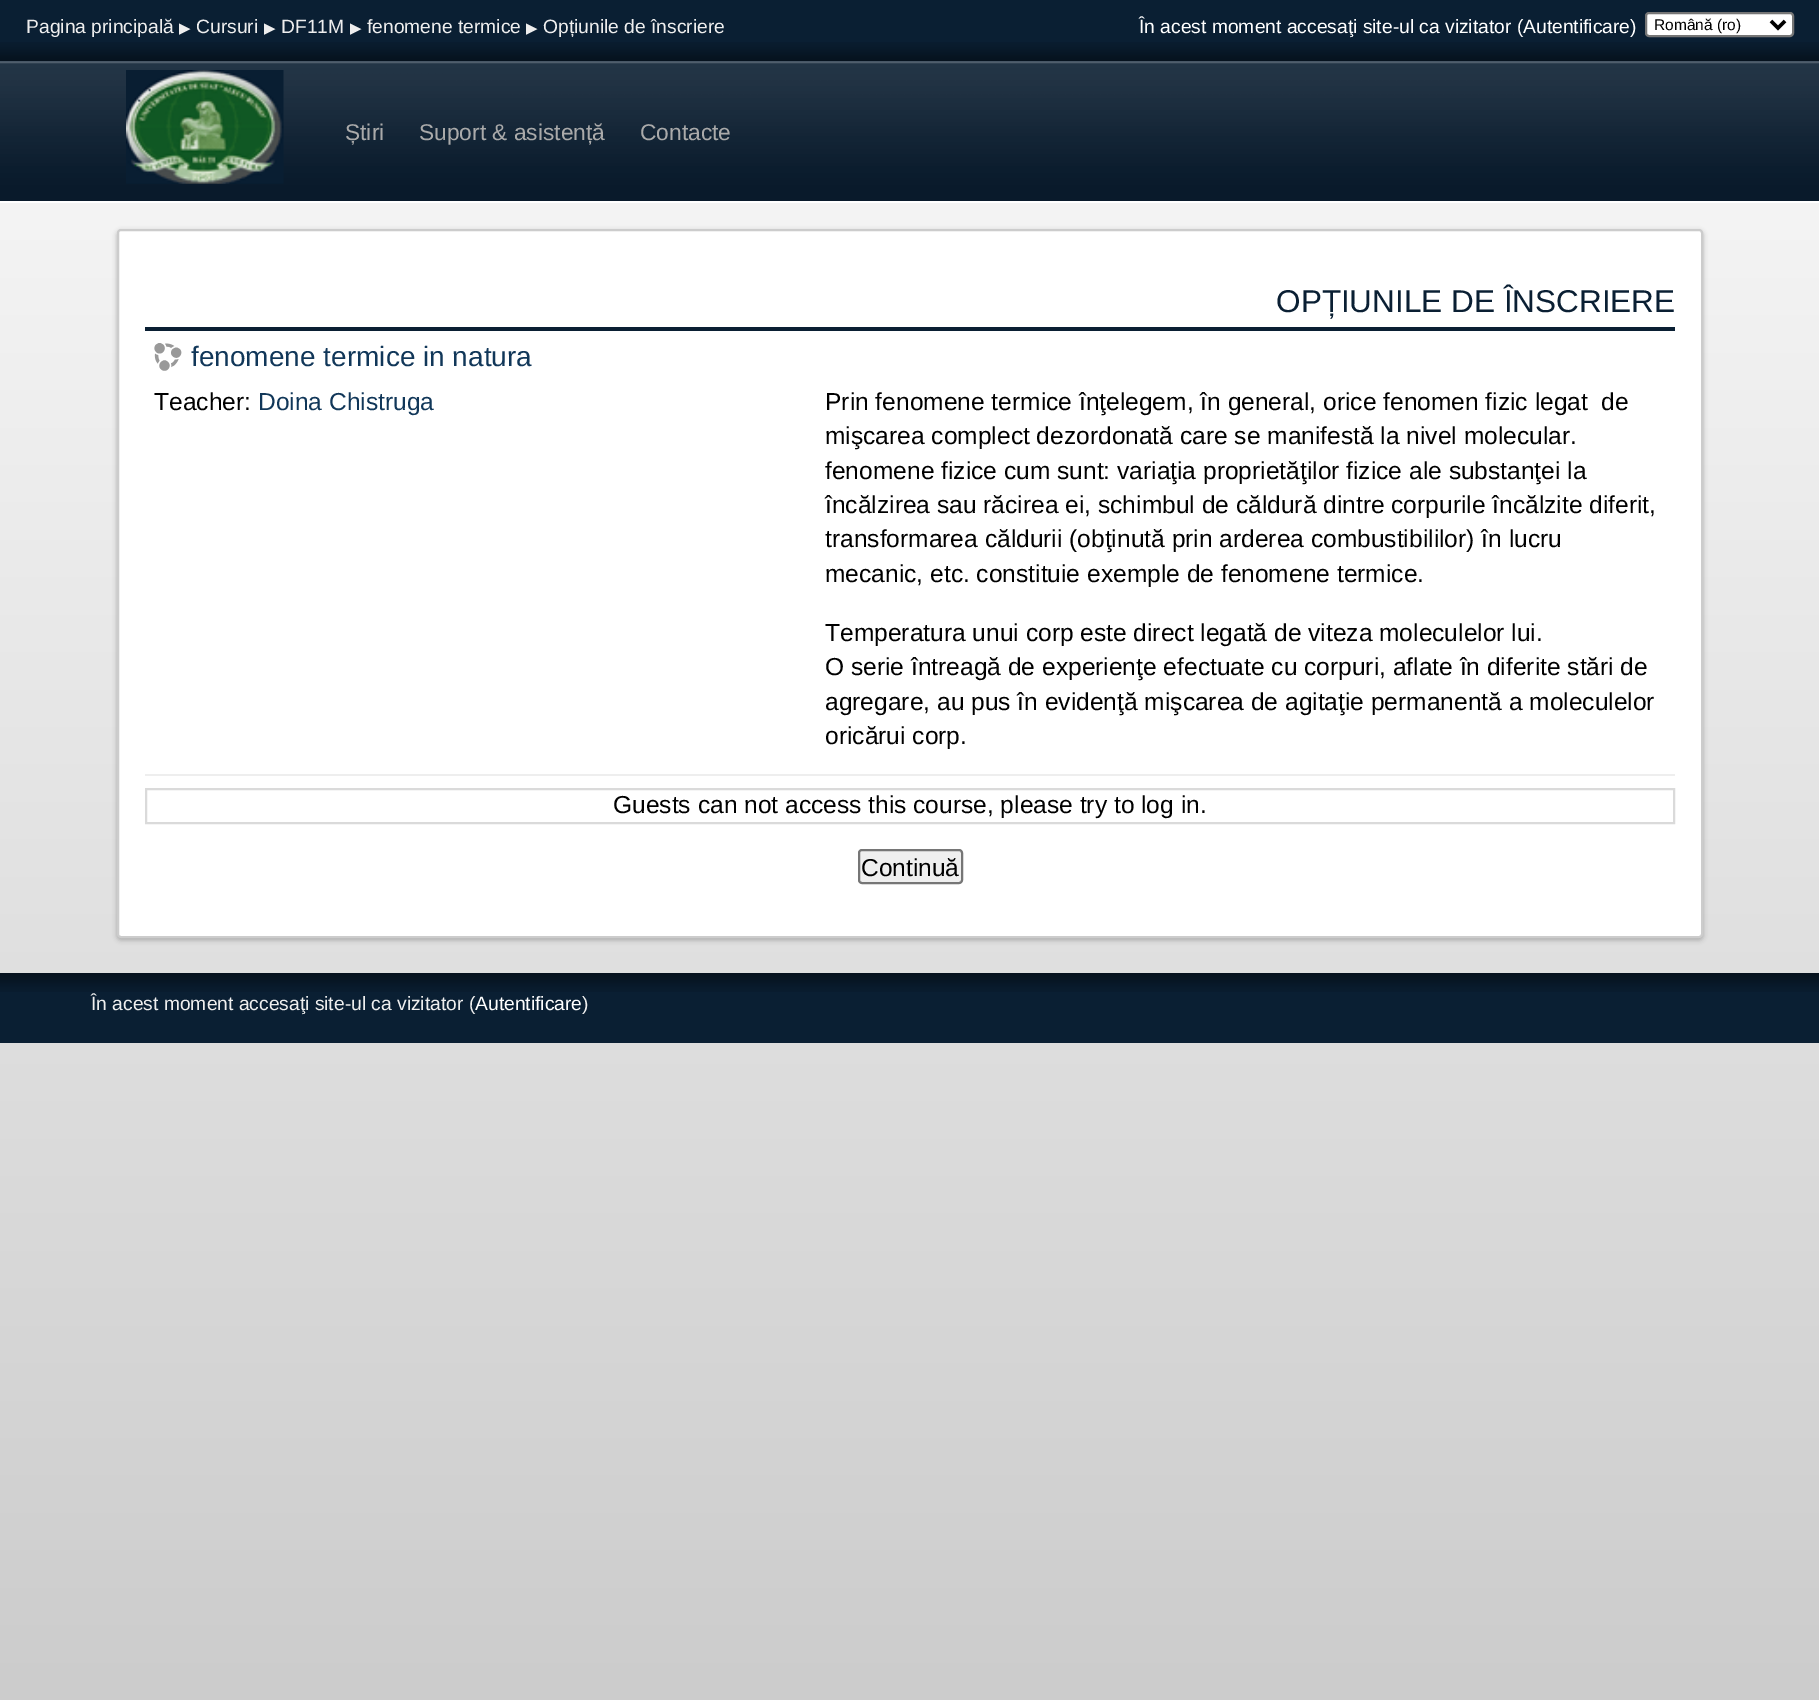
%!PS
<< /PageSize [1819 1700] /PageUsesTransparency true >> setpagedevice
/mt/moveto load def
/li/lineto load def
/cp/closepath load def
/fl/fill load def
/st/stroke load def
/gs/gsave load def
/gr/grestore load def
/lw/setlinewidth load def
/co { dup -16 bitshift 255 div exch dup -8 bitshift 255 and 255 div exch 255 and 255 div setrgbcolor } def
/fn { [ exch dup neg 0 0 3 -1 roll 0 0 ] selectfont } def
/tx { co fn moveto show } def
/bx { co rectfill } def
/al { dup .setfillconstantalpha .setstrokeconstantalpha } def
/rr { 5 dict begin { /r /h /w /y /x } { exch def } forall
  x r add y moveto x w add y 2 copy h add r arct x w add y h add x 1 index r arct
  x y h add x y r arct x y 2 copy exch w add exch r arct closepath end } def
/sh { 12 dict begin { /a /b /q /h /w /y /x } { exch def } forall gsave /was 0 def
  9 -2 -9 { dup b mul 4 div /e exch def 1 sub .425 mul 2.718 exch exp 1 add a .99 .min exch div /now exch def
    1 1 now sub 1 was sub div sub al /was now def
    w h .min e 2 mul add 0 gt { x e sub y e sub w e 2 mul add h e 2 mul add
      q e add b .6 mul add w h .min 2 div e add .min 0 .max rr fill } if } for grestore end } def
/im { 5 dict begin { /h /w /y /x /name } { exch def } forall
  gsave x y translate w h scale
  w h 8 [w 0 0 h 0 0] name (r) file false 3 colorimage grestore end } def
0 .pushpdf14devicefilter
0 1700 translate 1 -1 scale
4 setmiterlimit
0 0 1819 1700 16#FFFFFF bx
gs 0 203 mt 1819 203 li 1819 1700 li 0 1700 li cp clip newpath
<< /ShadingType 2 /ColorSpace /DeviceRGB /Coords [0 0 0 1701] /Extend [true true] /Function << /FunctionType 2 /Domain [0 1] /C0 [.98 .98 .98] /C1 [.8 .8 .8] /N 1 >> >> shfill gr
0 0 1819 201 16#0A1F33 bx
(media/1.raw) 0 42 1819 19 im
16#FFFFFF co
1646 13 147 23 3 rr gs fl gr
16#767676 co
2 lw
st
16#000000 co
3.5 lw
1771 21 mt 1778 28 li 1785 21 li st
(media/2.raw) 0 61 1819 140 im
(media/3.raw) 126 70 158 114 im
117 231 1586 709 4 2.5 .25 sh
16#FFFFFF co
118 230 1584 707 3 rr gs fl gr
16#CCCCCC co
2 lw
st
145 327 1530 4 16#0A1F33 bx
145 774 1530 2 16#EEEEEE bx
(media/4.raw) 154 343 28 28 im
16#DADADA co
146 789 1528 34 rectstroke
16#EFEFEF co
859 850 103 33 3 rr gs fl gr
16#767676 co
st
0 973 1819 70 16#0A1F33 bx
(media/5.raw) 0 973 1819 19 im
(Pagina principală) 26 33 /LiberationSans-Regular 19.25 16#EEEEEE tx
(▶) 179 33 /DejaVuSans-Regular 15 16#EEEEEE tx
(Cursuri) 196 33 /LiberationSans-Regular 19.25 16#EEEEEE tx
(▶) 264 33 /DejaVuSans-Regular 15 16#EEEEEE tx
(DF11M) 281 33 /LiberationSans-Regular 19.25 16#EEEEEE tx
(▶) 350 33 /DejaVuSans-Regular 15 16#EEEEEE tx
(fenomene termice) 367 33 /LiberationSans-Regular 19.25 16#EEEEEE tx
(▶) 526 33 /DejaVuSans-Regular 15 16#EEEEEE tx
(Opțiunile de înscriere) 543 33 /LiberationSans-Regular 19.25 16#EEEEEE tx
(În acest moment accesaţi site-ul ca vizitator \(Autentificare\)) 1139 33 /LiberationSans-Regular 19.25 16#FFFFFF tx
(Română \(ro\)) 1654 30 /LiberationSans-Regular 15.5 16#000000 tx
(Știri) 345 140 /LiberationSans-Regular 22.75 16#AAAAAA tx
(Suport & asistență) 419 140 /LiberationSans-Regular 22.75 16#AAAAAA tx
(Contacte) 640 140 /LiberationSans-Regular 22.75 16#AAAAAA tx
(OPȚIUNILE DE ÎNSCRIERE) 1276 312 /LiberationSans-Regular 31.5 16#0A1F33 tx
(fenomene termice in natura) 191 366 /LiberationSans-Regular 28 16#113759 tx
(Teacher:) 154 410 /LiberationSans-Regular 24.55 16#000000 tx
(Doina Chistruga) 258 410 /LiberationSans-Regular 24.55 16#113759 tx
(Prin fenomene termice înţelegem, în general, orice fenomen fizic legat  de) 825 410 /LiberationSans-Regular 24.55 16#000000 tx
(mişcarea complect dezordonată care se manifestă la nivel molecular.) 825 444 /LiberationSans-Regular 24.55 16#000000 tx
(fenomene fizice cum sunt: variaţia proprietăţilor fizice ale substanţei la) 825 479 /LiberationSans-Regular 24.55 16#000000 tx
(încălzirea sau răcirea ei, schimbul de căldură dintre corpurile încălzite diferit,) 825 513 /LiberationSans-Regular 24.55 16#000000 tx
(transformarea căldurii \(obţinută prin arderea combustibililor\) în lucru) 825 547 /LiberationSans-Regular 24.55 16#000000 tx
(mecanic, etc. constituie exemple de fenomene termice.) 825 582 /LiberationSans-Regular 24.55 16#000000 tx
(Temperatura unui corp este direct legată de viteza moleculelor lui.) 825 641 /LiberationSans-Regular 24.55 16#000000 tx
(O serie întreagă de experienţe efectuate cu corpuri, aflate în diferite stări de) 825 675 /LiberationSans-Regular 24.55 16#000000 tx
(agregare, au pus în evidenţă mişcarea de agitaţie permanentă a moleculelor) 825 710 /LiberationSans-Regular 24.55 16#000000 tx
(oricărui corp.) 825 744 /LiberationSans-Regular 24.55 16#000000 tx
(Guests can not access this course, please try to log in.) 613 813 /LiberationSans-Regular 24.55 16#000000 tx
(Continuă) 861 876 /LiberationSans-Regular 24.5 16#000000 tx
(În acest moment accesaţi site-ul ca vizitator \() 91 1010 /LiberationSans-Regular 19.25 16#EEEEEE tx
(Autentificare) 475 1010 /LiberationSans-Regular 19.25 16#FFFFFF tx
(\)) 582 1010 /LiberationSans-Regular 19.25 16#EEEEEE tx
.poppdf14devicefilter showpage
